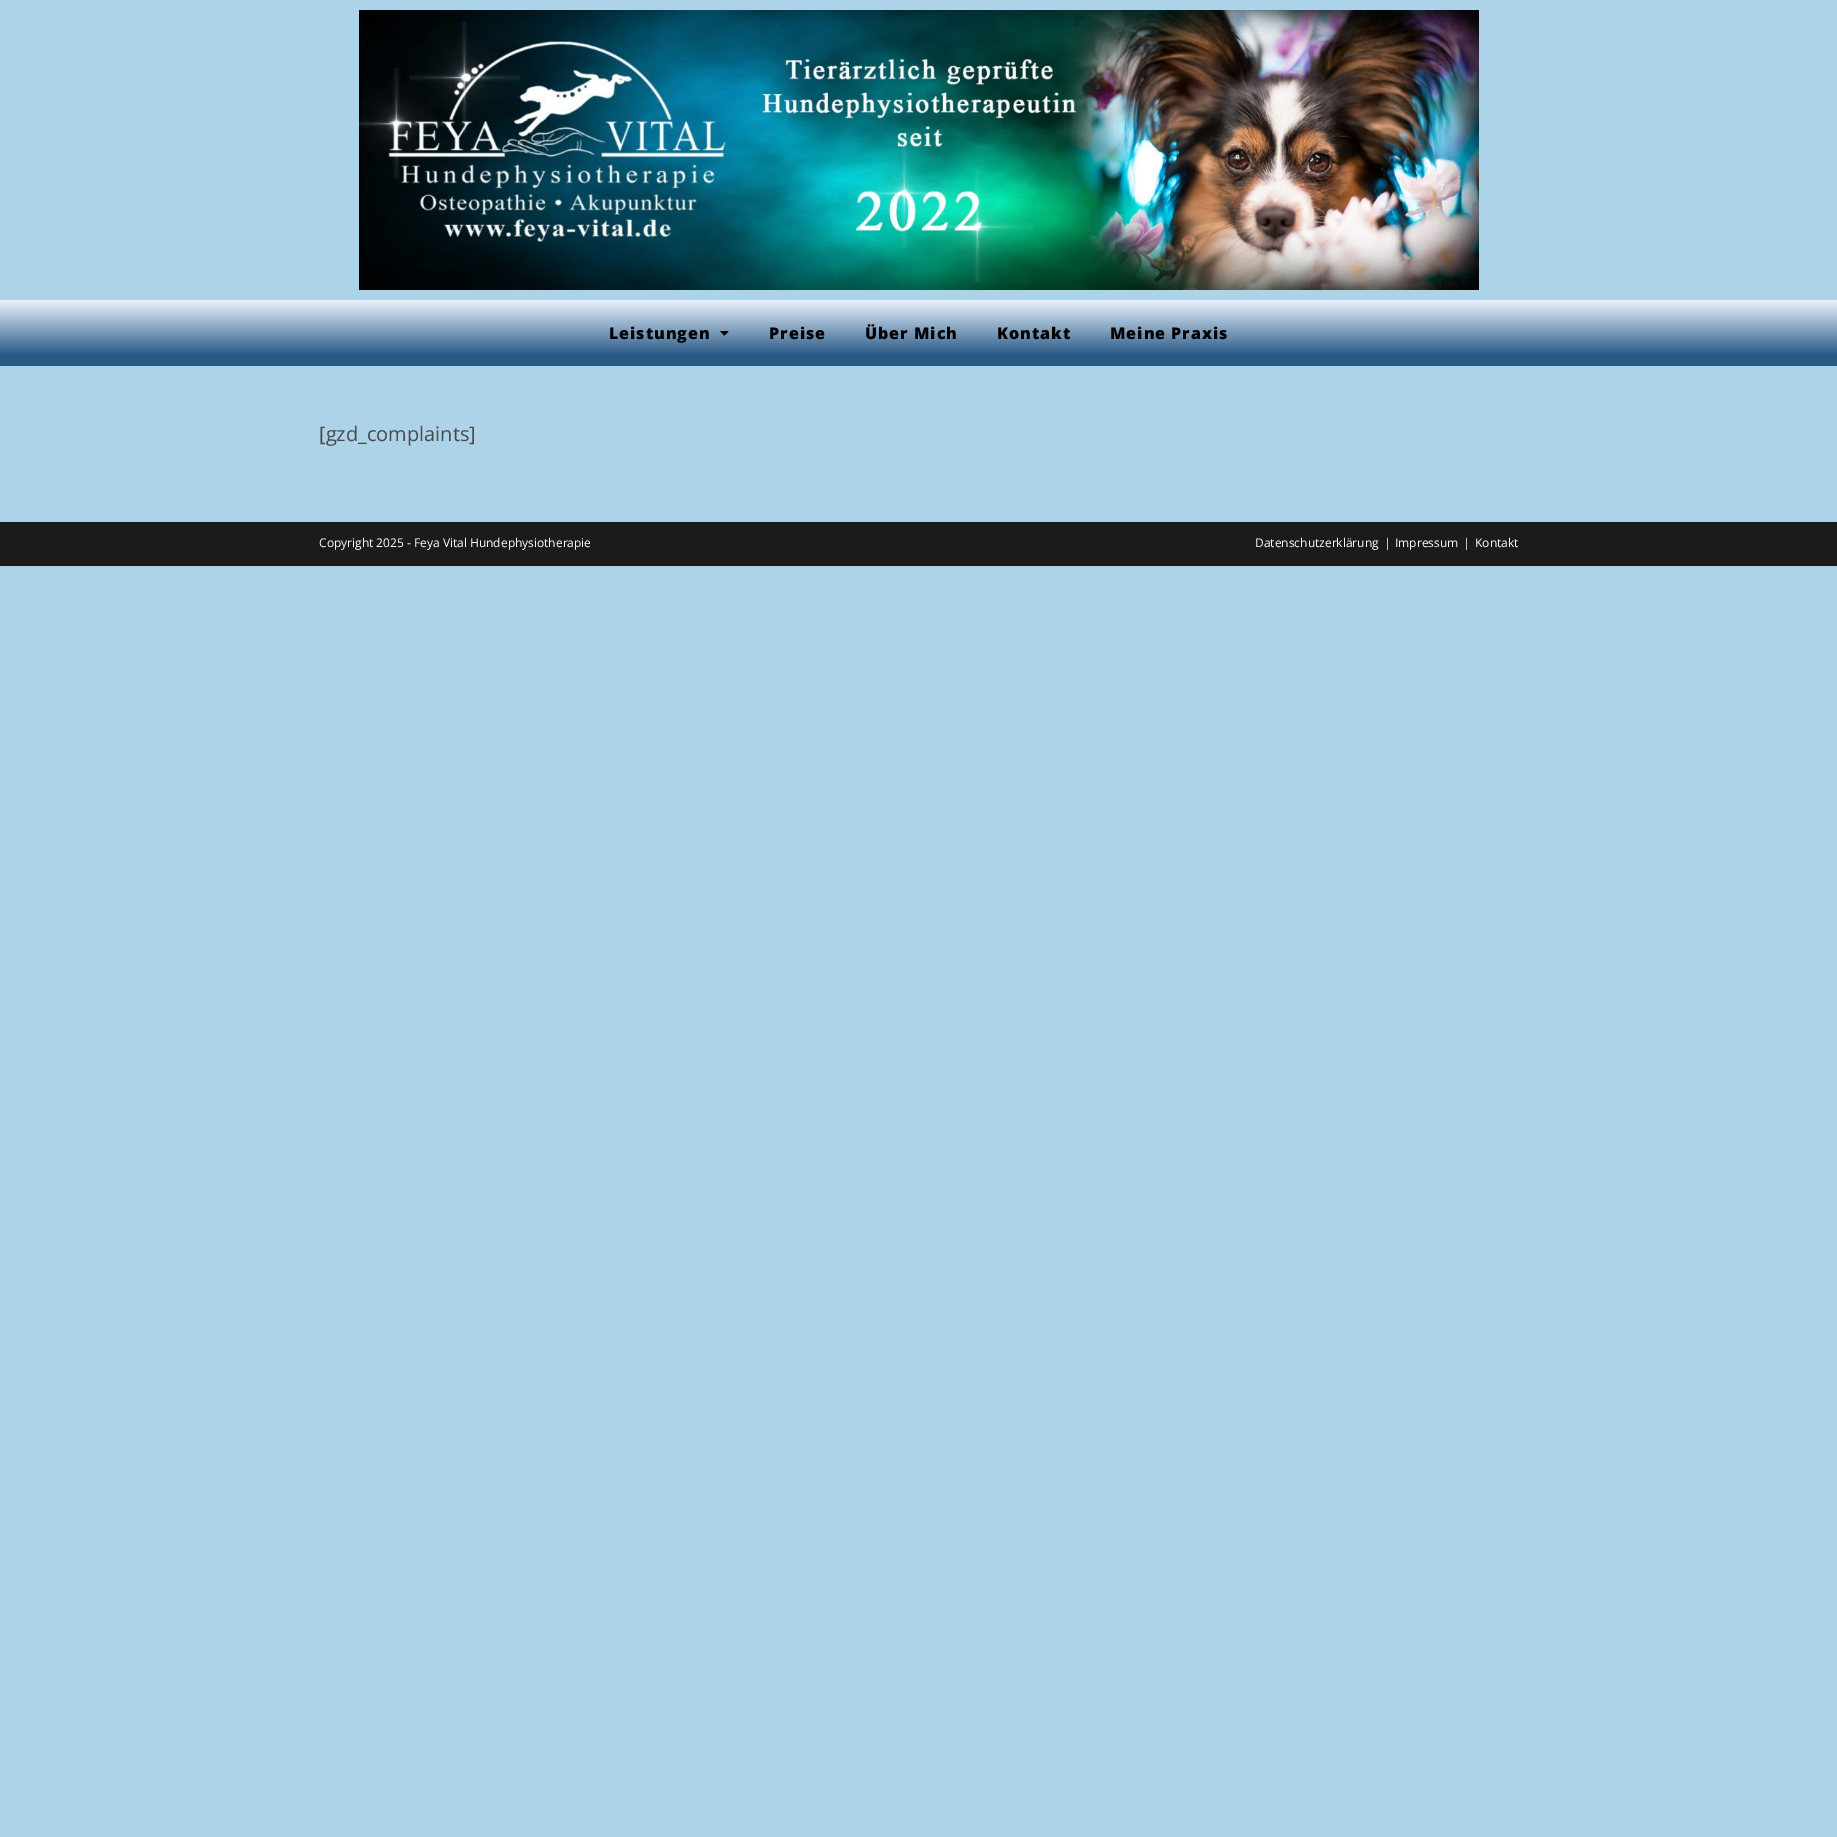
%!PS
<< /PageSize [1837 1837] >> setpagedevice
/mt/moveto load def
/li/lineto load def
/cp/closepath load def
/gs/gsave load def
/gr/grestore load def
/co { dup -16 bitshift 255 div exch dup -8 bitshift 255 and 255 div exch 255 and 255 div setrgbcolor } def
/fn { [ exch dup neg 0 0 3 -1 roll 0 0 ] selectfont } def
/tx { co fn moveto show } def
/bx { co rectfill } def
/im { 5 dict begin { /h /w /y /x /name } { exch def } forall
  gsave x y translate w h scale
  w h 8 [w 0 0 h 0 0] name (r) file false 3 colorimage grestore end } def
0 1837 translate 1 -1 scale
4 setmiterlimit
0 0 1837 1837 16#ACD3E7 bx
(media/1.raw) 359 10 1120 280 im
gs 0 300 mt 1837 300 li 1837 366 li 0 366 li cp clip newpath
<< /ShadingType 2 /ColorSpace /DeviceRGB /Coords [919 300 919 366] /Extend [true true] /Function << /FunctionType 3 /Domain [0 1] /Functions [<< /FunctionType 2 /Domain [0 1] /C0 [.918 .949 1] /C1 [.157 .353 .525] /N 1 >> << /FunctionType 2 /Domain [0 1] /C0 [.157 .353 .525] /C1 [.157 .353 .525] /N 1 >>] /Bounds [.84] /Encode [0 1 0 1] >> >> shfill gr
(media/2.raw) 720 331 9 5 im
0 522 1837 44 16#1B1B1B bx
/OpenSans-ExtraBold 16 fn
16#000000 co
609 339 mt 1 0 (Leistungen) ashow
769 339 mt 1 0 (Preise) ashow
865 339 mt 1 0 (Über Mich) ashow
997 339 mt 1 0 (Kontakt) ashow
1110 339 mt 1 0 (Meine Praxis) ashow
([gzd_complaints]) 319 441 /OpenSans-Regular 20 16#4A4A4A tx
(Copyright 2025 - Feya Vital Hundephysiotherapie) 319 547 /OpenSans-Regular 12 16#FFFFFF tx
(Datenschutzerklärung) 1255 547 /OpenSans-Regular 12 16#FFFFFF tx
(|) 1384 547 /OpenSans-Regular 12 16#FFFFFF tx
(Impressum) 1395 547 /OpenSans-Regular 12 16#FFFFFF tx
(|) 1463 547 /OpenSans-Regular 12 16#FFFFFF tx
(Kontakt) 1475 547 /OpenSans-Regular 12 16#FFFFFF tx
showpage
